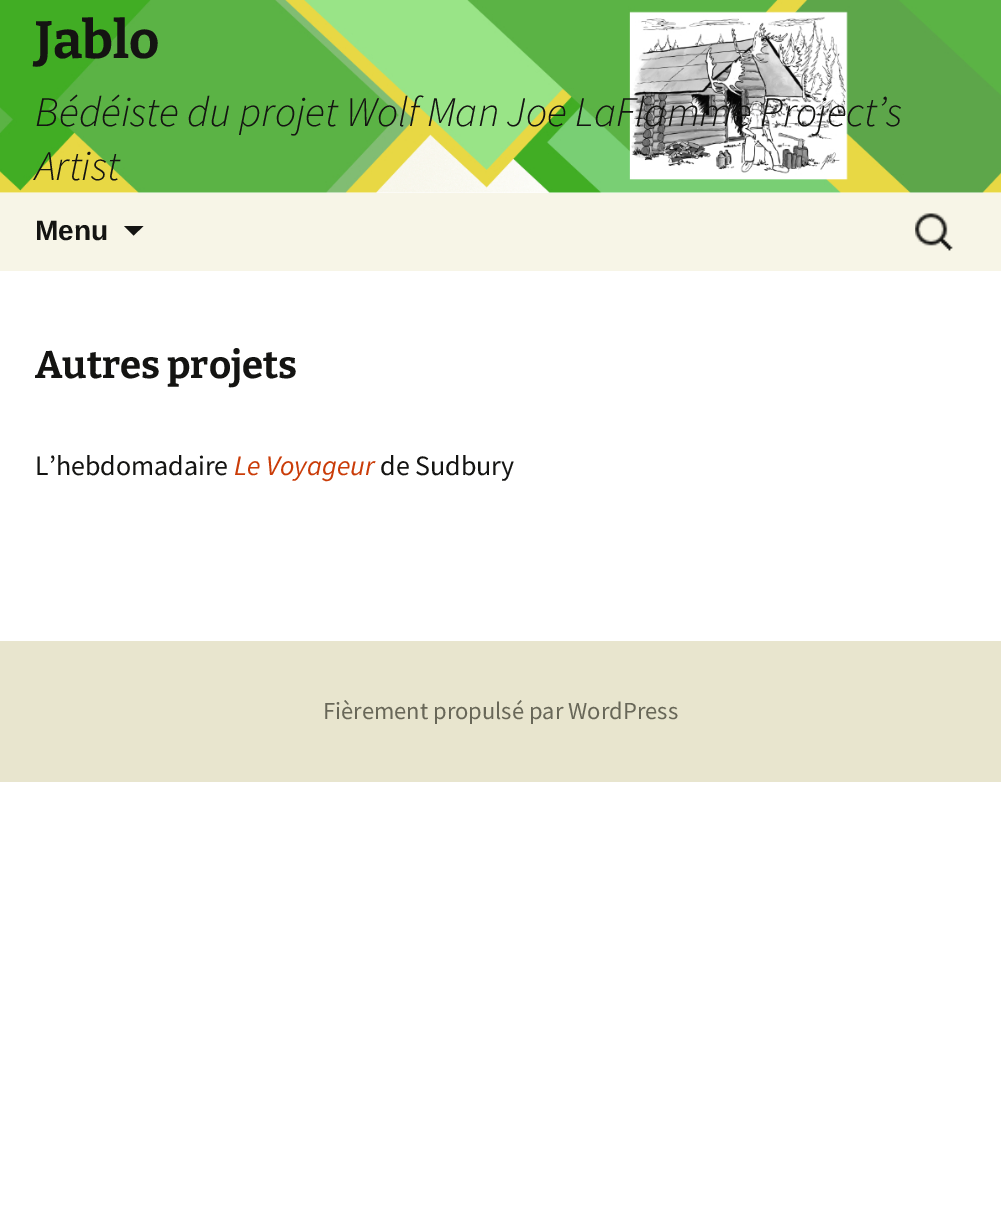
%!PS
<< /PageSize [1001 1211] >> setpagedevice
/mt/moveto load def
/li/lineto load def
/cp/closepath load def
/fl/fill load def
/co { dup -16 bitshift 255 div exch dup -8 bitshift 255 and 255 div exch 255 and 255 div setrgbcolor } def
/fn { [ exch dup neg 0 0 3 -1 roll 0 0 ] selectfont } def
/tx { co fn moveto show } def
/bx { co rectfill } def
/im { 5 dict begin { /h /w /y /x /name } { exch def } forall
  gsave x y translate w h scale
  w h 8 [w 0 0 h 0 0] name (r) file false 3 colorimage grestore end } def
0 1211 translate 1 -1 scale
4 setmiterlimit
0 0 1001 1211 16#FFFFFF bx
(media/1.raw) 0 0 1001 193 im
0 193 1001 78 16#F7F5E7 bx
16#141412 co
124 226 mt 143.5 226 li 133.5 235.5 li cp fl
(media/2.raw) 915 213 38 38 im
0 641 1001 141 16#E8E5CE bx
(Jablo) 35 58 /Bitter-Thin 52.5 16#141412 tx
(Bédéiste du projet Wolf Man Joe LaFlamme Project’s) 35 126 /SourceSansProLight-LightItalic 42 16#141412 tx
(Artist) 35 180 /SourceSansProLight-LightItalic 42 16#141412 tx
(Menu) 35 240 /LiberationSans-Bold 28 16#141412 tx
(Autres projets) 35 378 /Bitter-Thin 38.5 16#141412 tx
(L’hebdomadaire) 35 475 /SourceSansPro-Regular 28 16#141412 tx
(Le Voyageur) 234 475 /SourceSansPro-Italic 28 16#CA3C08 tx
(de Sudbury) 380 475 /SourceSansPro-Regular 28 16#141412 tx
(Fièrement propulsé par WordPress) 323 719 /SourceSansPro-Regular 24.5 16#686758 tx
showpage
